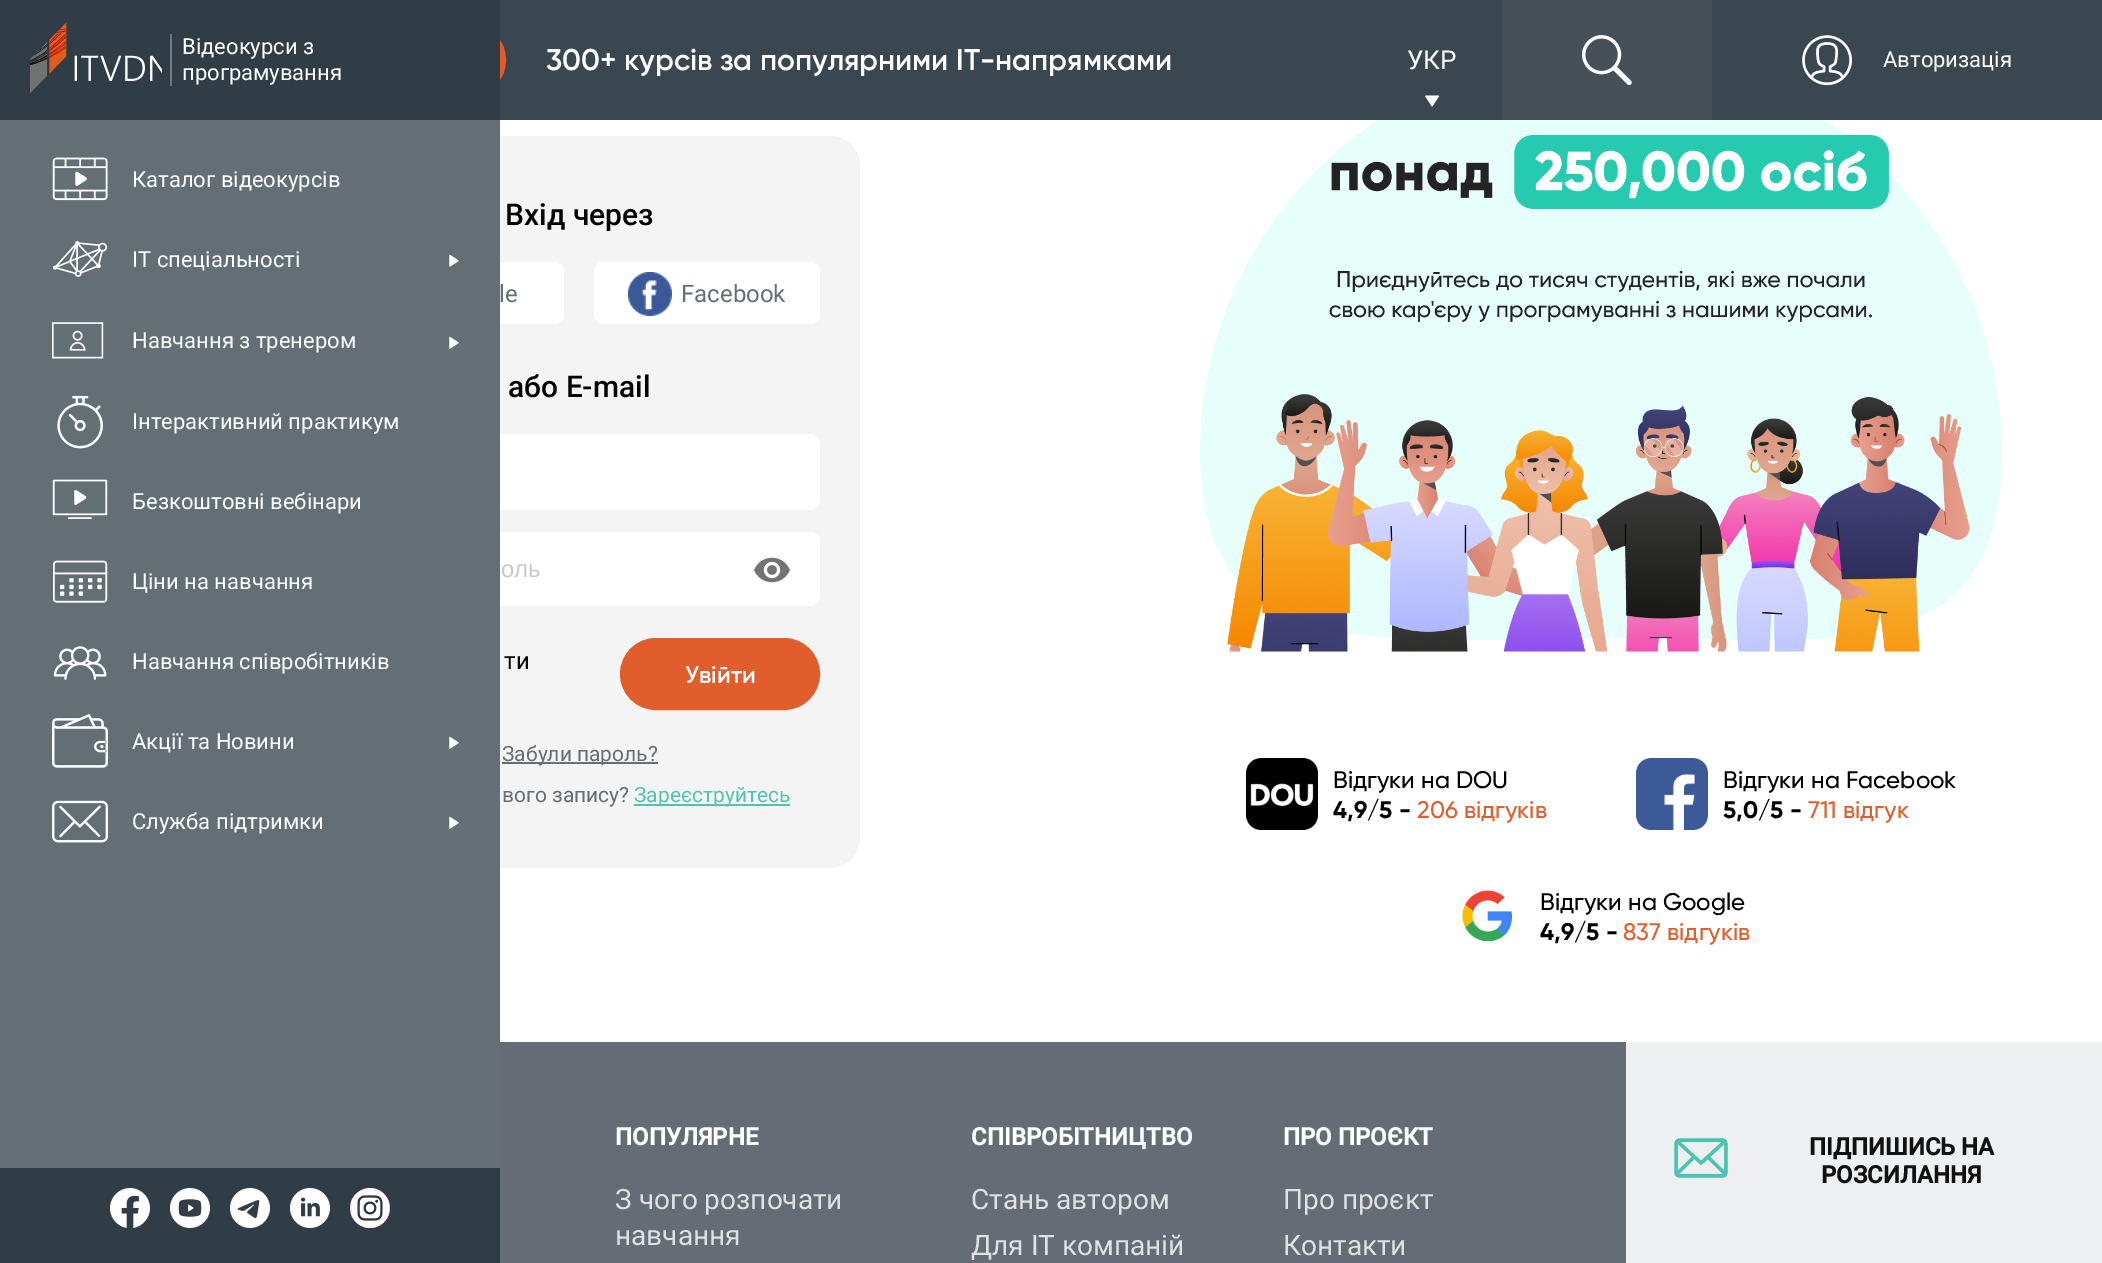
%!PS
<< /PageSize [2102 1263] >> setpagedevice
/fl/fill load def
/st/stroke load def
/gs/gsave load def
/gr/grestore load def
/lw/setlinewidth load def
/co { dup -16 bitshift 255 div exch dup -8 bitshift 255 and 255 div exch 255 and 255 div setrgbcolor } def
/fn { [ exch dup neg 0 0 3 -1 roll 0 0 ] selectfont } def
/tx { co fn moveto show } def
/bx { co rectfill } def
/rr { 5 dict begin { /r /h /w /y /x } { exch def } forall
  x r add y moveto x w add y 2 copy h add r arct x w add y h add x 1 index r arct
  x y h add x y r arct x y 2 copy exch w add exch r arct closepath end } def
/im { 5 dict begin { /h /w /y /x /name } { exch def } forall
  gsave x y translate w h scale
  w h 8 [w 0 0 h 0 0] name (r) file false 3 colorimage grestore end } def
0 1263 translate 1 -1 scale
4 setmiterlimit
0 0 2102 1263 16#FFFFFF bx
16#F4F4F4 co
300 136 560 732 30 rr fl
16#FFFFFF co
340 262 224 62 10 rr fl
340 434 480 76 10 rr fl
340 532 480 74 10 rr fl
0 120 500 1048 16#646F75 bx
500 0 1602 120 16#3B4750 bx
16#E25D2C co
262 26 242 68 34 rr gs fl gr
4 lw
st
0 0 500 120 16#303D46 bx
(media/1.raw) 30 22 132 71 im
170 34 2 52 16#707980 bx
(media/2.raw) 52 157 56 44 im
(media/3.raw) 52 241 56 36 im
(media/4.raw) 449 254 10 13 im
(media/5.raw) 52 322 52 37 im
(media/4.raw) 449 336 10 13 im
(media/6.raw) 57 395 46 54 im
(media/7.raw) 52 479 56 40 im
(media/8.raw) 53 560 55 43 im
(media/9.raw) 53 646 54 34 im
(media/10.raw) 52 714 56 54 im
(media/4.raw) 449 736 10 13 im
(media/11.raw) 52 800 56 43 im
(media/4.raw) 449 816 10 13 im
0 1168 500 95 16#303D46 bx
(media/12.raw) 110 1188 40 40 im
(media/13.raw) 170 1188 40 40 im
(media/14.raw) 230 1188 40 40 im
(media/15.raw) 290 1188 40 40 im
(media/16.raw) 350 1188 40 40 im
(media/17.raw) 1425 95 15 12 im
1502 0 210 120 16#465059 bx
(media/18.raw) 1582 35 50 51 im
(media/19.raw) 1802 35 50 51 im
16#FFFFFF co
594 262 226 62 10 rr fl
(media/20.raw) 628 272 44 44 im
(media/21.raw) 754 557 36 26 im
16#E25D2C co
622 640 196 68 34 rr gs fl gr
st
502 762 156 2 16#646F75 bx
634 804 156 2 16#52C3B0 bx
(media/22.raw) 1200 120 802 532 im
(media/23.raw) 1246 758 72 72 im
(media/24.raw) 1636 758 72 72 im
(media/25.raw) 1462 890 50 52 im
1626 1042 476 221 16#EEEFF0 bx
500 1042 1126 221 16#646D75 bx
(media/26.raw) 1674 1138 54 40 im
(Відеокурси з) 182 54 /Roboto-Regular 22 16#FFFFFF tx
(програмування) 182 80 /Roboto-Regular 22 16#FFFFFF tx
(Каталог відеокурсів) 132 187 /Roboto-Regular 22 16#FFFFFF tx
(ІТ спеціальності) 132 267 /Roboto-Regular 22 16#FFFFFF tx
(Навчання з тренером) 132 348 /Roboto-Regular 22 16#FFFFFF tx
(Інтерактивний практикум) 132 429 /Roboto-Regular 22 16#FFFFFF tx
(Безкоштовні вебінари) 132 509 /Roboto-Regular 22 16#FFFFFF tx
(Ціни на навчання) 132 589 /Roboto-Regular 22 16#FFFFFF tx
(Навчання співробітників) 132 669 /Roboto-Regular 22 16#FFFFFF tx
(Акції та Новини) 132 749 /Roboto-Regular 22 16#FFFFFF tx
(Служба підтримки) 132 829 /Roboto-Regular 22 16#FFFFFF tx
(300+ курсів за популярними IT-напрямками) 546 70 /Gilroy-SemiBold 30 16#FFFFFF tx
(УКР) 1407 69 /Roboto-Regular 26 16#FFFFFF tx
(Авторизація) 1883 67 /Roboto-Regular 22 16#FFFFFF tx
(Вхід через) 505 225 /Roboto-Medium 30 16#000000 tx
(le) 499 302 /Roboto-Regular 24 16#646F75 tx
(Facebook) 681 302 /Roboto-Regular 24 16#646F75 tx
(або E-mail) 508 397 /Roboto-Medium 30 16#000000 tx
(оль) 501 577 /LiberationSans-Regular 24 16#C9C9C9 tx
(ти) 504 669 /Roboto-Regular 24 16#000000 tx
(Увійти) 685 683 /Gilroy-SemiBold 24 16#FFFFFF tx
(Забули пароль?) 502 761 /Roboto-Regular 21 16#646F75 tx
(вого запису?) 502 802 /Roboto-Regular 21 16#646F75 tx
(Зареєструйтесь) 634 802 /Roboto-Regular 21 16#52C3B0 tx
(Відгуки на DOU) 1333 788 /Gilroy-Medium 24 16#000000 tx
(4,9/5 -) 1333 818 /Gilroy-Bold 24 16#000000 tx
(206 відгуків) 1417 818 /Gilroy-Medium 24 16#E25D2C tx
(Відгуки на Facebook) 1723 788 /Gilroy-Medium 24 16#000000 tx
(5,0/5 -) 1723 818 /Gilroy-Bold 24 16#000000 tx
(711 відгук) 1808 818 /Gilroy-Medium 24 16#E25D2C tx
(Відгуки на Google) 1540 910 /Gilroy-Medium 24 16#000000 tx
(4,9/5 -) 1540 940 /Gilroy-Bold 24 16#000000 tx
(837 відгуків) 1623 940 /Gilroy-Medium 24 16#E25D2C tx
(ПОПУЛЯРНЕ) 615 1145 /Roboto-Bold 24 16#FFFFFF tx
(З чого розпочати) 615 1209 /Roboto-Regular 28 16#E1E1E1 tx
(навчання) 615 1245 /Roboto-Regular 28 16#E1E1E1 tx
(СПІВРОБІТНИЦТВО) 971 1145 /Roboto-Bold 24 16#FFFFFF tx
(Стань автором) 971 1209 /Roboto-Regular 28 16#E1E1E1 tx
(Для ІТ компаній) 971 1255 /Roboto-Regular 28 16#E1E1E1 tx
(ПРО ПРОЄКТ) 1283 1145 /Roboto-Bold 24 16#FFFFFF tx
(Про проєкт) 1283 1209 /Roboto-Regular 28 16#E1E1E1 tx
(Контакти) 1283 1255 /Roboto-Regular 28 16#E1E1E1 tx
(ПІДПИШИСЬ НА) 1809 1155 /Roboto-Bold 24 16#111111 tx
(РОЗСИЛАННЯ) 1821 1183 /Roboto-Bold 24 16#111111 tx
showpage
